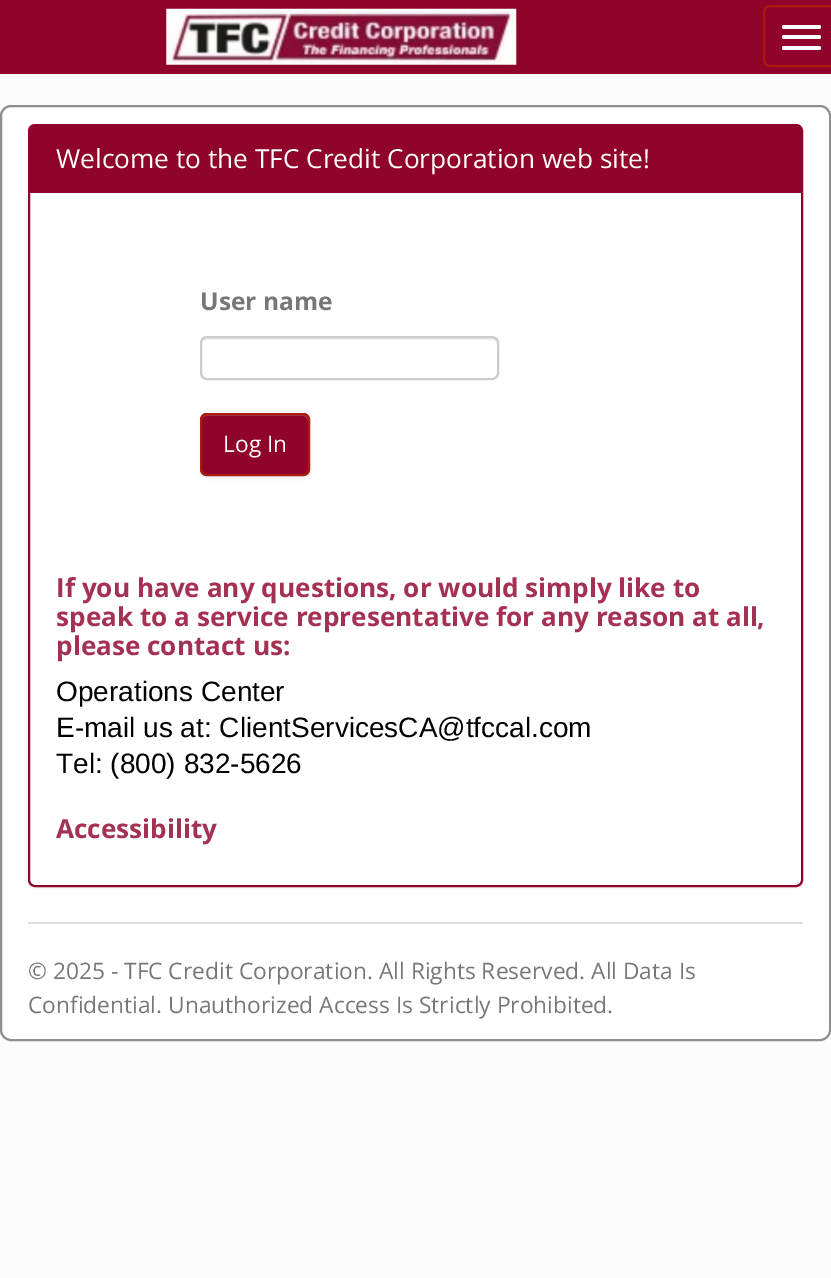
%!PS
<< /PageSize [831 1278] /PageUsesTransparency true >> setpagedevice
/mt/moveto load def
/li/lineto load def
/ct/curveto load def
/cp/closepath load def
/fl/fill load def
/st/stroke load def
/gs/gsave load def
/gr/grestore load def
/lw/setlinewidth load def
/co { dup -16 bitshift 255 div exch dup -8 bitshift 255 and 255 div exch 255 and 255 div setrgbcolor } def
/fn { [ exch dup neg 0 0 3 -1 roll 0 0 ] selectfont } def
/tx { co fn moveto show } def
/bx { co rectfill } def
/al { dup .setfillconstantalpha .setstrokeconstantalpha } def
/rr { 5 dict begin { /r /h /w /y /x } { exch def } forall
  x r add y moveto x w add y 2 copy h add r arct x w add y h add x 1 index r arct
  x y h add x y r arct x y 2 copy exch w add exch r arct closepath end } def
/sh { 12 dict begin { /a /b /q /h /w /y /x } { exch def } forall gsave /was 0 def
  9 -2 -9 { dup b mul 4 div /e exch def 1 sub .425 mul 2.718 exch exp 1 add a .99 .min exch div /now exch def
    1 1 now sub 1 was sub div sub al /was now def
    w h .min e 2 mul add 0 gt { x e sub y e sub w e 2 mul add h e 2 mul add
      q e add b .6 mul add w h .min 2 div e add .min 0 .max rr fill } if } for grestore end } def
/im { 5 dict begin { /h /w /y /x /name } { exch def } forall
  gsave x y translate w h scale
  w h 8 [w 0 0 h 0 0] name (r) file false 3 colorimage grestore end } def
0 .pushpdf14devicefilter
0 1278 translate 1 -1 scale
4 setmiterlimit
0 0 831 1278 16#FCFCFC bx
0 0 831 74 16#90042B bx
(media/1.raw) 166 8 351 57 im
16#A91B0C co
2 lw
764 6 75 60 6 rr st
16#FFFFFF co
782 25 39 4 2 rr fl
782 35 39 4 2 rr fl
782 46 39 4 2 rr fl
1 106 829 934 10 rr gs fl gr
16#8E8E8E co
st
16#000000 co
28 126 775 763 7 1 .05 sh
16#FFFFFF co
29 125 773 761 6 rr gs fl gr
16#90042B co
st
35 126 mt 797 126 li 800 126 802 128 802 131 ct 802 193 li 30 193 li 30 131 li 30 128 32 126 35 126 ct cp fl
16#ECECEC co
206 340 mt 492 340 li 495 340 497 342 497 345 ct 497 342 496 338 492 338 ct 205 338 li 201 339 201 342 201 345 ct 201 342 204 340 206 340 ct cp fl
16#CCCCCC co
201 337 297 42 6 rr st
16#000000 co
200 415 110 63 7 2 .05 sh
16#90042B co
200 413 110 63 7 rr fl
16#A63655 co
206 416 mt 303 416 li 306 416 308 419 308 422 ct 308 420 li 308 417 306 415 303 415 ct 206 415 li 203 415 201 417 201 420 ct 201 422 li 201 419 204 416 206 416 ct cp fl
16#A91B0C co
201 414 108 61 6 rr st
28 922 775 2 16#DDDDDD bx
(Welcome to the TFC Credit Corporation web site!) 56 168 /OpenSans-Regular 26.25 16#FFFFFF tx
(User name) 200 310 /OpenSans-Bold 24.5 16#777777 tx
(Log In) 223 452 /OpenSans-Regular 22.75 16#FFFFFF tx
(If you have any questions, or would simply like to) 56 597 /OpenSans-Bold 26.15 16#A43152 tx
(speak to a service representative for any reason at all,) 56 626 /OpenSans-Bold 26.15 16#A43152 tx
(please contact us:) 56 655 /OpenSans-Bold 26.15 16#A43152 tx
(Operations Center) 56 701 /LiberationSans-Regular 28 16#000000 tx
(E-mail us at: ClientServicesCA@tfccal.com) 56 737 /LiberationSans-Regular 28 16#000000 tx
(Tel: \(800\) 832-5626) 56 773 /LiberationSans-Regular 28 16#000000 tx
(Accessibility) 56 838 /OpenSans-Bold 26.15 16#A43152 tx
(© 2025 - TFC Credit Corporation. All Rights Reserved. All Data Is) 28 979 /OpenSans-Regular 22.75 16#777777 tx
(Confidential. Unauthorized Access Is Strictly Prohibited.) 28 1013 /OpenSans-Regular 22.75 16#777777 tx
.poppdf14devicefilter showpage
